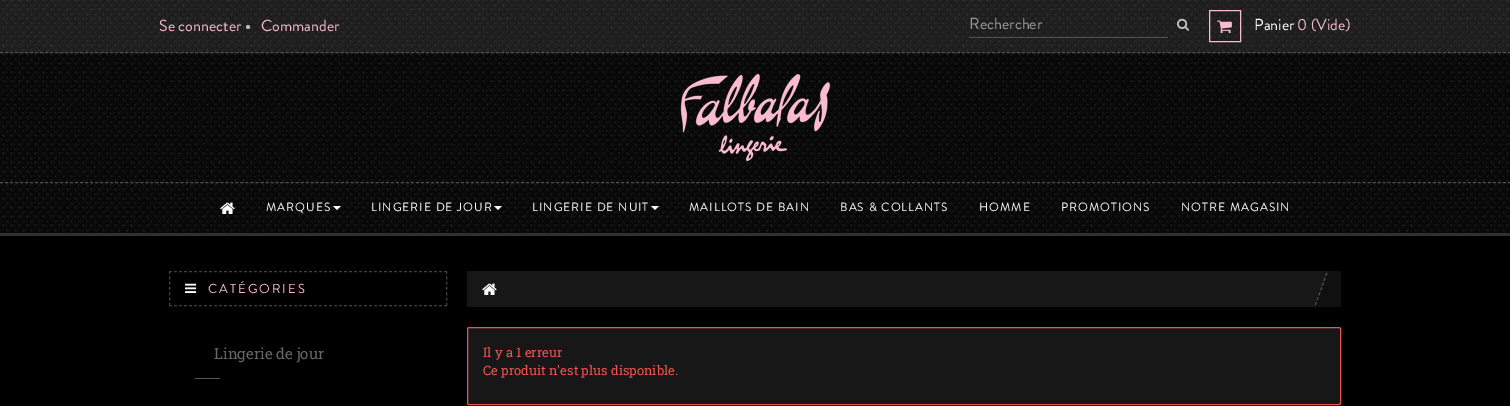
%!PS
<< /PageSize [1510 406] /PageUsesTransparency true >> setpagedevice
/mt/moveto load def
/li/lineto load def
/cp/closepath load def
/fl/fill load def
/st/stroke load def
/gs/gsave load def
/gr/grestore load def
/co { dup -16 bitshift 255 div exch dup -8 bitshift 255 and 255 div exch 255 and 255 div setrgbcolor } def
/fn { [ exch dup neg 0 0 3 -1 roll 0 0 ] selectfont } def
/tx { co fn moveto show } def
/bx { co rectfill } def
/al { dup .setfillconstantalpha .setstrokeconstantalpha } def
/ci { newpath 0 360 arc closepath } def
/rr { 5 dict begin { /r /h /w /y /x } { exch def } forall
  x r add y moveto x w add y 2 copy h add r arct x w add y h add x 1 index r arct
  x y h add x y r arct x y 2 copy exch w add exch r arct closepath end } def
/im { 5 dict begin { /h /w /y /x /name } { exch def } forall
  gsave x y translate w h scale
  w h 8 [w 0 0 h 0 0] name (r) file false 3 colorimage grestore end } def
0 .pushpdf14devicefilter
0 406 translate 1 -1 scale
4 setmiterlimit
0 0 1510 406 16#000000 bx
(media/1.raw) 0 0 1510 233 im
0.15 al
0 0 1510 53 16#9B9B9B bx
1 al
16#505050 co
[3 2.01] 0 setdash
0 52.5 mt 1510 52.5 li st
16#BBBBBB co
248 27 2 ci fl
969 37 199 1 16#505050 bx
(media/2.raw) 1177 18 12 13 im
16#F8BBD0 co
[] 0 setdash
1209.5 10.5 31 31 rectstroke
(media/3.raw) 1217 20 15 14 im
(media/4.raw) 680 73 150 88 im
16#505050 co
[3 2.01] 0 setdash
0 182.5 mt 1510 182.5 li st
0 233 1510 3 16#303030 bx
(media/5.raw) 220 202 15 12 im
16#FFFFFF co
333 206 mt 341 206 li 337 210 li cp fl
494 206 mt 502 206 li 498 210 li cp fl
651 206 mt 659 206 li 655 210 li cp fl
16#404040 co
[3 2] 0 setdash
169 271.5 mt 447 271.5 li st
[3 2.33] 0 setdash
446.5 271 mt 446.5 306 li st
[3 2] 0 setdash
169 305.5 mt 447 305.5 li st
[3 2.33] 0 setdash
169.5 271 mt 169.5 306 li st
(media/6.raw) 185 283 12 10 im
195 378 25 1 16#555555 bx
467 271 861 36 16#171717 bx
(media/7.raw) 482 283 15 12 im
gs
467 271 874 36 rectclip
16#101010 co
1337 244 mt 1401 267 li 1377 333 li 1313 310 li cp fl
16#505050 co
[3 2.15] 0 setdash
1337.5 244 mt 1313.5 310 li st
gr
467.5 327.5 873 77 1.5 rr gs fl gr
16#EF5350 co
[] 0 setdash
st
(Se connecter) 159 31 /BrandonGrotesque-Regular 16 16#F8BBD0 tx
(Commander) 261 31 /BrandonGrotesque-Regular 16 16#F8BBD0 tx
(Rechercher) 969 29 /BrandonGrotesque-Regular 16 16#999999 tx
(Panier) 1254 30 /BrandonGrotesque-Regular 16 16#FFFFFF tx
(0 \(Vide\)) 1297 30 /BrandonGrotesque-Regular 16 16#F8BBD0 tx
/BrandonGrotesque-Regular 12 fn
16#FFFFFF co
266 211 mt 1 0 (MARQUES) ashow
371 211 mt 1 0 (LINGERIE DE JOUR) ashow
532 211 mt 1 0 (LINGERIE DE NUIT) ashow
689 211 mt 1 0 (MAILLOTS DE BAIN) ashow
840 211 mt 1 0 (BAS & COLLANTS) ashow
979 211 mt 1 0 (HOMME) ashow
1061 211 mt 1 0 (PROMOTIONS) ashow
1181 211 mt 1 0 (NOTRE MAGASIN) ashow
/BrandonGrotesque-Regular 13 fn
16#F8BBD0 co
208 293 mt 2 0 (CATÉGORIES) ashow
(Lingerie de jour) 214 359 /RobotoSlab-Regular 15 16#666666 tx
(Il y a 1 erreur) 483 357 /RobotoSlab-Regular 13 16#EF5350 tx
(Ce produit n'est plus disponible.) 483 375 /RobotoSlab-Regular 13 16#EF5350 tx
.poppdf14devicefilter showpage
